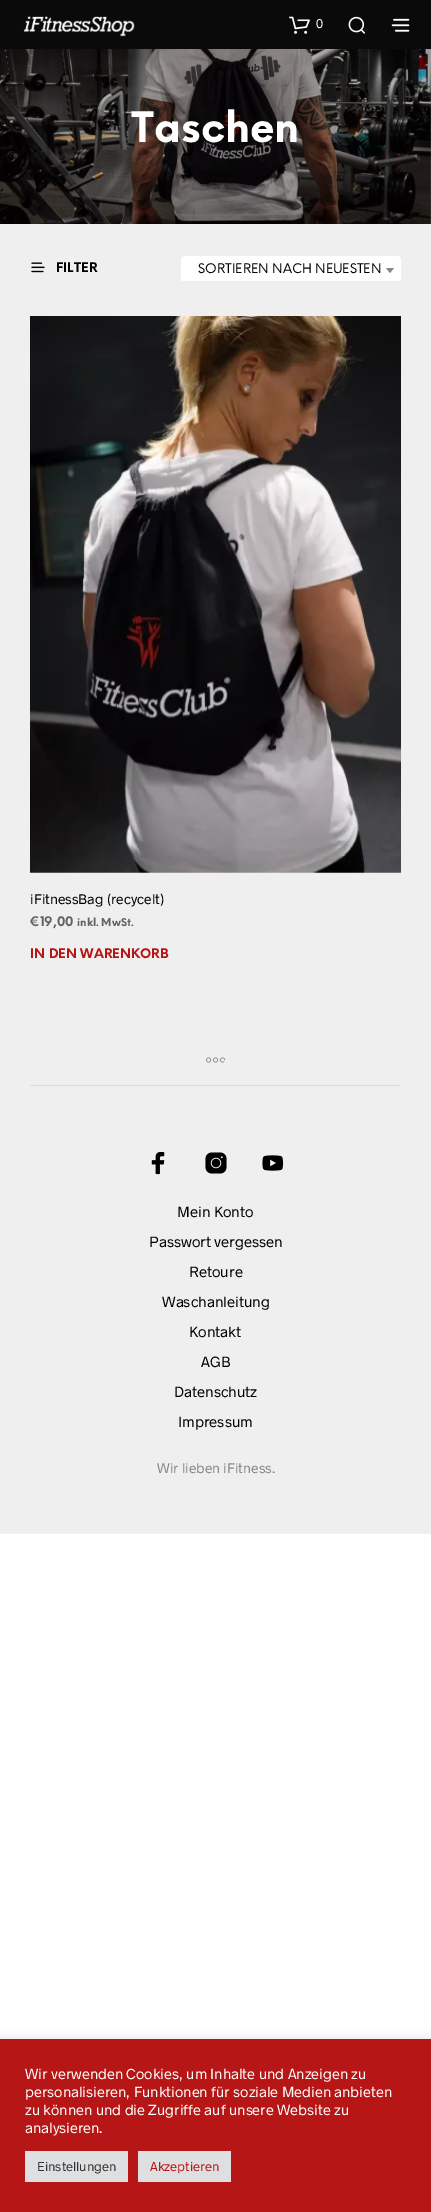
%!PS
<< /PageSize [431 2212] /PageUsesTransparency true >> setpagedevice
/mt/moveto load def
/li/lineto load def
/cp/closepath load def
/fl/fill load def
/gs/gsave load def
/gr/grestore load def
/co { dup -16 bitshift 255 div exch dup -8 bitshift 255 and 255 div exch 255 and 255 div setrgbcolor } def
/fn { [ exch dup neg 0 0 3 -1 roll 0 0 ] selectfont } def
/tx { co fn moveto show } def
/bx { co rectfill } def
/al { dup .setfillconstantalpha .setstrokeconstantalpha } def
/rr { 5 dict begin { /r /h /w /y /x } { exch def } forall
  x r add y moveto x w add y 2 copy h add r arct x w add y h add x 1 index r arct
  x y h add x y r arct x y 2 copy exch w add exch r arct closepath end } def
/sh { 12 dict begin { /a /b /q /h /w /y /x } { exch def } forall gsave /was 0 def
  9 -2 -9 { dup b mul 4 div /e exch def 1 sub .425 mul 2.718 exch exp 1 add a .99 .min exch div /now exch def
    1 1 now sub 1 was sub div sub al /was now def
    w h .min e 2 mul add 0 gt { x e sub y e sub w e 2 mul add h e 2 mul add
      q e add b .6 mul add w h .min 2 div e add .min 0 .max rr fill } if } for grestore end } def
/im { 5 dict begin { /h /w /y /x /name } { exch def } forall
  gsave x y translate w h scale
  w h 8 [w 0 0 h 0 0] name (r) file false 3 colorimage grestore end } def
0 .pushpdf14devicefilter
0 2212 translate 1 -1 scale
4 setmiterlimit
0 0 431 2212 16#FFFFFF bx
0 49 431 1485 16#EFEFEF bx
0 0 431 49 16#0A0A0A bx
(media/1.raw) 23 16 112 21 im
(media/2.raw) 289 16 21 18 im
(media/3.raw) 348 16 17 18 im
(media/4.raw) 391 18 19 14 im
(media/5.raw) 0 49 431 175 im
(media/6.raw) 31 262 14 11 im
gs
30 254 371 27 rectclip
16#FFFFFF co
181 256 220 28 4 rr fl
gr
16#888888 co
386 268 mt 394 268 li 390 273 li cp fl
(media/7.raw) 30 316 371 557 im
30 1085 371 1 16#DDDDDD bx
(media/8.raw) 206 1057 20 6 im
(media/9.raw) 151 1152 14 23 im
(media/10.raw) 205 1152 22 22 im
(media/11.raw) 262 1155 22 16 im
16#ACABAB co
0 2038 431 173 0 5 .3 sh
0 2039 431 173 16#B61615 bx
25 2151 103 31 16#DEDFE0 bx
138 2151 93 31 16#DEDFE0 bx
(0) 316 28 /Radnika-Regular 13 16#FFFFFF tx
(Taschen) 131 142 /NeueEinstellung-Bold 41 16#FFFFFF tx
(FILTER) 56 272 /NeueEinstellung-Bold 13 16#000000 tx
(SORTIEREN NACH NEUESTEN) 198 273 /NeueEinstellung-Regular 13 16#000000 tx
(iFitnessBag \(recycelt\)) 30 904 /Radnika-Regular 14 16#000000 tx
(€19,00) 30 926 /NeueEinstellung-Bold 13 16#626262 tx
(inkl. MwSt.) 77 926 /NeueEinstellung-Bold 10.5 16#626262 tx
(IN DEN WARENKORB) 30 958 /NeueEinstellung-Bold 13 16#B61516 tx
(Mein Konto) 177 1217 /Radnika-Regular 15 16#000000 tx
(Passwort vergessen) 149 1247 /Radnika-Regular 15 16#000000 tx
(Retoure) 189 1277 /Radnika-Regular 15 16#000000 tx
(Waschanleitung) 162 1307 /Radnika-Regular 15 16#000000 tx
(Kontakt) 189 1337 /Radnika-Regular 15 16#000000 tx
(AGB) 201 1367 /Radnika-Regular 15 16#000000 tx
(Datenschutz) 174 1397 /Radnika-Regular 15 16#000000 tx
(Impressum) 178 1427 /Radnika-Regular 15 16#000000 tx
(Wir lieben iFitness.) 157 1473 /Radnika-Regular 14 16#868686 tx
(Wir verwenden Cookies, um Inhalte und Anzeigen zu) 25 2079 /Radnika-Regular 14.7 16#FFFFFF tx
(personalisieren, Funktionen für soziale Medien anbieten) 25 2097 /Radnika-Regular 14.7 16#FFFFFF tx
(zu können und die Zugriffe auf unsere Website zu) 25 2115 /Radnika-Regular 14.7 16#FFFFFF tx
(analysieren.) 25 2133 /Radnika-Regular 14.7 16#FFFFFF tx
(Einstellungen) 37 2171 /Radnika-Regular 13 16#333333 tx
(Akzeptieren) 150 2171 /Radnika-Regular 13 16#B61516 tx
.poppdf14devicefilter showpage
